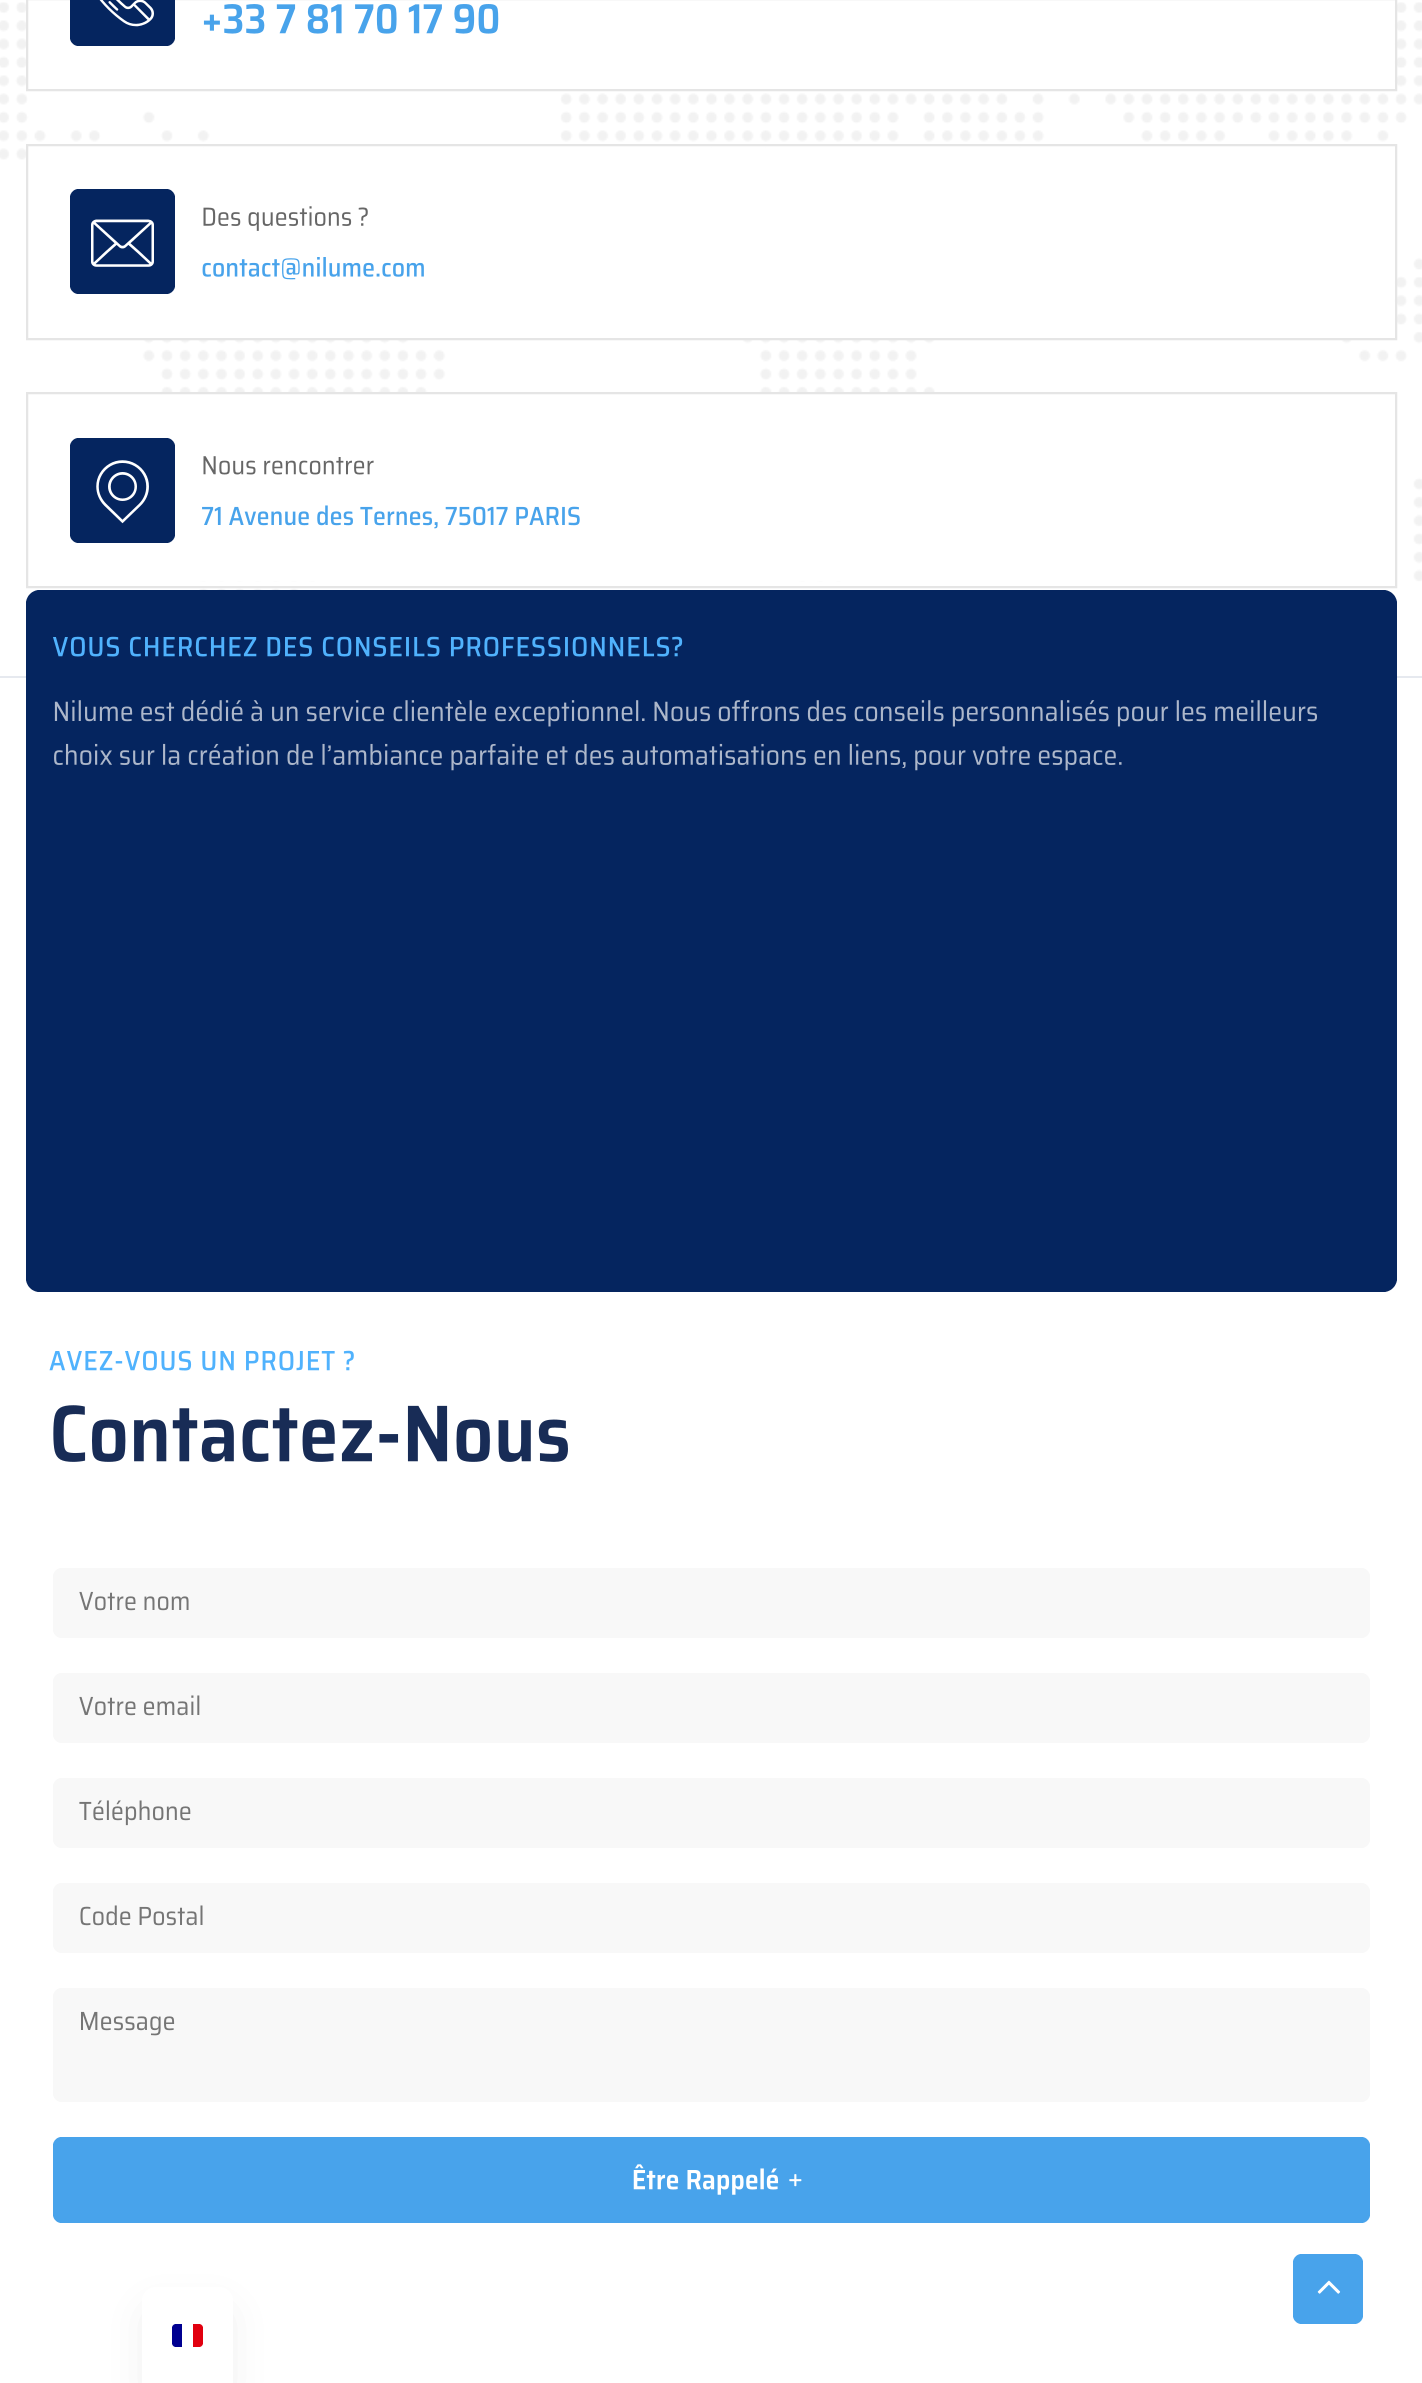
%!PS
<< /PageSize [1422 2383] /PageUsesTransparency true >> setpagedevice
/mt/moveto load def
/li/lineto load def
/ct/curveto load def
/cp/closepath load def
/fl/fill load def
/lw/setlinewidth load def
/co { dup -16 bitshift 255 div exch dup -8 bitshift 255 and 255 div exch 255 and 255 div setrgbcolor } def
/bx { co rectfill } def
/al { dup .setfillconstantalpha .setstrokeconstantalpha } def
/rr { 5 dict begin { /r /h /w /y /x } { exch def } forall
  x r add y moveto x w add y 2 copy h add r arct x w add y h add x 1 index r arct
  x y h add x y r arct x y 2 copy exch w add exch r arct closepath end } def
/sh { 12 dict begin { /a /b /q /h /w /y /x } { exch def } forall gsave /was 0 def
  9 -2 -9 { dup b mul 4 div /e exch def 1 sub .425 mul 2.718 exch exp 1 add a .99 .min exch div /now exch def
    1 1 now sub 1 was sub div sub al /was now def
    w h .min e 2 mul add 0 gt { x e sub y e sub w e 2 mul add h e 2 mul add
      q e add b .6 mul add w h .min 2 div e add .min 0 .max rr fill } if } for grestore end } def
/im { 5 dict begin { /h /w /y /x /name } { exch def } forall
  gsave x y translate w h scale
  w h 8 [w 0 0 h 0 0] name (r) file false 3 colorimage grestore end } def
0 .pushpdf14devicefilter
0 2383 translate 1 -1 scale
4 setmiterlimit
0 0 1422 2383 16#FFFFFF bx
0 676 1422 2 16#E6E9EF bx
(media/9.raw) 0 2 1422 588 im
34 2 1355 85 16#FFFFFF bx
16#E5E5E5 co
2 lw
27 -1 1369 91 rectstroke
16#05255F co
70 -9 105 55 9 rr fl
(media/1.raw) 99 0 55 27 im
(media/2.raw) 203 4 296 30 im
34 148 1355 190 16#FFFFFF bx
16#E5E5E5 co
27 145 1369 194 rectstroke
16#05255F co
70 189 105 105 9 rr fl
(media/3.raw) 91 219 63 48 im
(media/4.raw) 203 206 165 25 im
(media/5.raw) 202 257 222 23 im
162 394 828 187 16#FFFFFF bx
16#E5E5E5 co
27 393 1369 194 rectstroke
16#05255F co
70 438 105 105 9 rr fl
(media/6.raw) 96 460 53 64 im
(media/7.raw) 203 456 171 19 im
(media/8.raw) 202 505 378 24 im
26 590 1371 702 14 rr fl
(media/10.raw) 53 636 630 21 im
(media/11.raw) 54 700 331 22 im
(media/12.raw) 393 700 924 27 im
(media/13.raw) 54 743 1068 28 im
(media/14.raw) 49 1350 305 21 im
(media/15.raw) 53 1405 515 57 im
16#F8F8F8 co
53 1568 1317 70 9 rr fl
(media/16.raw) 79 1591 110 20 im
53 1673 1317 70 9 rr fl
(media/17.raw) 79 1695 121 21 im
53 1778 1317 70 9 rr fl
(media/18.raw) 79 1800 112 26 im
53 1883 1317 70 9 rr fl
(media/19.raw) 80 1905 123 21 im
53 1988 1317 114 9 rr fl
(media/20.raw) 81 2011 94 25 im
16#48A3EB co
53 2137 1317 86 9 rr fl
(media/21.raw) 633 2164 146 31 im
(media/22.raw) 789 2174 13 13 im
16#000000 co
142 2305 91 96 14 17.5 .05 sh
16#FFFFFF co
156 2287 mt 219 2287 li 226.5 2287 233 2293.5 233 2301 ct 233 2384 li 142 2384 li 142 2301 li 142 2293.5 148.5 2287 156 2287 ct cp fl
16#000091 co
176 2324 mt 182 2324 li 182 2347 li 176 2347 li 174 2347 172 2345 172 2343 ct 172 2328 li 172 2326 174 2324 176 2324 ct cp fl
16#E1000F co
193 2324 mt 199 2324 li 201 2324 203 2326 203 2328 ct 203 2343 li 203 2345 201 2347 199 2347 ct 193 2347 li cp fl
16#48A3EB co
1293 2254 70 70 9 rr fl
(media/23.raw) 1317 2280 24 14 im
.poppdf14devicefilter showpage
